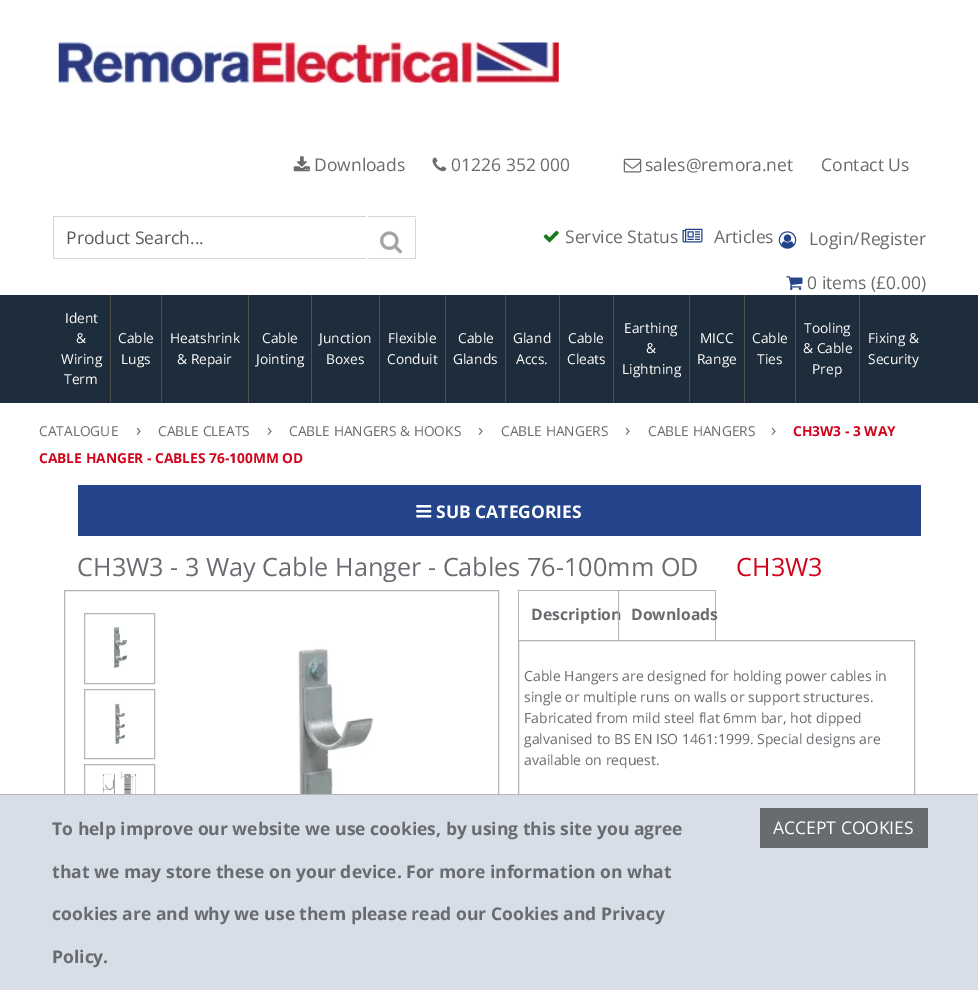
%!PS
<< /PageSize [978 990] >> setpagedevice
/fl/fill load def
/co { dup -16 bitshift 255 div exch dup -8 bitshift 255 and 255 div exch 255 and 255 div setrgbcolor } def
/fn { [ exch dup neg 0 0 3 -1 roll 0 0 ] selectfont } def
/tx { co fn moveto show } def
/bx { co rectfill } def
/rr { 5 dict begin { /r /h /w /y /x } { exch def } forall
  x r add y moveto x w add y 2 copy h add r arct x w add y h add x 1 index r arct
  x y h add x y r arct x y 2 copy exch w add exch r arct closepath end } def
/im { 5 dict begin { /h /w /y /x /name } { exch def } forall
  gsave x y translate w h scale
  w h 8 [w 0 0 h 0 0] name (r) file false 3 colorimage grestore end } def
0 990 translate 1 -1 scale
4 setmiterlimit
0 0 978 990 16#FFFFFF bx
(media/1.raw) 58 42 501 41 im
(media/2.raw) 293 156 17 16 im
(media/3.raw) 432 157 15 15 im
(media/4.raw) 623 158 19 15 im
53 216 313 1 16#D6D6D6 bx
53 258 313 1 16#D6D6D6 bx
53 216 1 43 16#D6D6D6 bx
368 216 48 1 16#D6D6D6 bx
415 218 1 41 16#D6D6D6 bx
368 258 48 1 16#D6D6D6 bx
(media/5.raw) 380 231 22 23 im
(media/6.raw) 543 230 16 13 im
(media/7.raw) 682 228 21 15 im
(media/8.raw) 778 231 19 18 im
(media/9.raw) 786 276 17 14 im
0 295 978 108 16#1E2D3B bx
110 295 1 108 16#4E4E4E bx
161 295 1 108 16#4E4E4E bx
248 295 1 108 16#4E4E4E bx
311 295 1 108 16#4E4E4E bx
379 295 1 108 16#4E4E4E bx
445 295 1 108 16#4E4E4E bx
505 295 1 108 16#4E4E4E bx
559 295 1 108 16#4E4E4E bx
613 295 1 108 16#4E4E4E bx
689 295 1 108 16#4E4E4E bx
744 295 1 108 16#4E4E4E bx
795 295 1 108 16#4E4E4E bx
859 295 1 108 16#4E4E4E bx
16#24448C co
78 485 843 51 1 rr fl
(media/10.raw) 416 505 16 13 im
16#B5B4B4 co
64.5 590.5 434 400 rectstroke
84.5 613.5 70 70 rectstroke
(media/11.raw) 112 627 16 41 im
84.5 689.5 70 69 rectstroke
(media/12.raw) 114 703 11 42 im
84.5 764.5 70 70 rectstroke
(media/13.raw) 102 771 35 23 im
(media/14.raw) 298 647 76 147 im
518 590 198 1 16#B5B4B4 bx
518 590 1 50 16#B5B4B4 bx
715 590 1 50 16#B5B4B4 bx
518.5 640.5 396 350 rectstroke
0 795 978 195 16#D8DEE7 bx
0 794 978 1 16#B5B4B4 bx
760 808 168 40 16#686C70 bx
(Downloads) 314 171 /OpenSans-Regular 17.5 16#686C70 tx
(01226 352 000) 451 171 /OpenSans-Regular 17.5 16#686C70 tx
(sales@remora.net) 645 171 /OpenSans-Regular 17.5 16#686C70 tx
(Contact Us) 821 171 /OpenSans-Regular 17.5 16#686C70 tx
(Product Search...) 66 244 /OpenSans-Regular 17.5 16#595C5F tx
(Service Status) 565 243 /OpenSans-Regular 17.5 16#686C70 tx
(Articles) 714 243 /OpenSans-Regular 17.5 16#686C70 tx
(Login/Register) 809 245 /OpenSans-Regular 17.5 16#686C70 tx
(0 items \(£0.00\)) 807 289 /OpenSans-Regular 17.5 16#686C70 tx
(Ident) 65 323 /OpenSans-Regular 13.75 16#FFFFFF tx
(&) 76 343 /OpenSans-Regular 13.75 16#FFFFFF tx
(Wiring) 61 364 /OpenSans-Regular 13.75 16#FFFFFF tx
(Term) 64 384 /OpenSans-Regular 13.75 16#FFFFFF tx
(Cable) 118 343 /OpenSans-Regular 13.75 16#FFFFFF tx
(Lugs) 121 364 /OpenSans-Regular 13.75 16#FFFFFF tx
(Heatshrink) 170 343 /OpenSans-Regular 13.75 16#FFFFFF tx
(& Repair) 177 364 /OpenSans-Regular 13.75 16#FFFFFF tx
(Cable) 262 343 /OpenSans-Regular 13.75 16#FFFFFF tx
(Jointing) 256 364 /OpenSans-Regular 13.75 16#FFFFFF tx
(Junction) 319 343 /OpenSans-Regular 13.75 16#FFFFFF tx
(Boxes) 326 364 /OpenSans-Regular 13.75 16#FFFFFF tx
(Flexible) 388 343 /OpenSans-Regular 13.75 16#FFFFFF tx
(Conduit) 387 364 /OpenSans-Regular 13.75 16#FFFFFF tx
(Cable) 458 343 /OpenSans-Regular 13.75 16#FFFFFF tx
(Glands) 453 364 /OpenSans-Regular 13.75 16#FFFFFF tx
(Gland) 513 343 /OpenSans-Regular 13.75 16#FFFFFF tx
(Accs.) 516 364 /OpenSans-Regular 13.75 16#FFFFFF tx
(Cable) 568 343 /OpenSans-Regular 13.75 16#FFFFFF tx
(Cleats) 567 364 /OpenSans-Regular 13.75 16#FFFFFF tx
(Earthing) 624 333 /OpenSans-Regular 13.75 16#FFFFFF tx
(&) 646 353 /OpenSans-Regular 13.75 16#FFFFFF tx
(Lightning) 622 374 /OpenSans-Regular 13.75 16#FFFFFF tx
(MICC) 700 343 /OpenSans-Regular 13.75 16#FFFFFF tx
(Range) 697 364 /OpenSans-Regular 13.75 16#FFFFFF tx
(Cable) 752 343 /OpenSans-Regular 13.75 16#FFFFFF tx
(Ties) 757 364 /OpenSans-Regular 13.75 16#FFFFFF tx
(Tooling) 804 333 /OpenSans-Regular 13.75 16#FFFFFF tx
(& Cable) 803 353 /OpenSans-Regular 13.75 16#FFFFFF tx
(Prep) 812 374 /OpenSans-Regular 13.75 16#FFFFFF tx
(Fixing &) 868 343 /OpenSans-Regular 13.75 16#FFFFFF tx
(Security) 868 364 /OpenSans-Regular 13.75 16#FFFFFF tx
(CATALOGUE) 39 436 /OpenSans-Regular 13.75 16#686C70 tx
(›) 136 436 /OpenSans-Regular 17.5 16#686C70 tx
(CABLE CLEATS) 158 436 /OpenSans-Regular 13.75 16#686C70 tx
(›) 267 436 /OpenSans-Regular 17.5 16#686C70 tx
(CABLE HANGERS & HOOKS) 289 436 /OpenSans-Regular 13.75 16#686C70 tx
(›) 478 436 /OpenSans-Regular 17.5 16#686C70 tx
(CABLE HANGERS) 501 436 /OpenSans-Regular 13.75 16#686C70 tx
(›) 625 436 /OpenSans-Regular 17.5 16#686C70 tx
(CABLE HANGERS) 648 436 /OpenSans-Regular 13.75 16#686C70 tx
(›) 771 436 /OpenSans-Regular 17.5 16#686C70 tx
(CH3W3 - 3 WAY) 793 436 /OpenSans-Bold 13.75 16#D1041C tx
(CABLE HANGER - CABLES 76-100MM OD) 39 463 /OpenSans-Bold 13.75 16#D1041C tx
(SUB CATEGORIES) 436 518 /OpenSans-Bold 17.5 16#FFFFFF tx
(CH3W3 - 3 Way Cable Hanger - Cables 76-100mm OD) 77 576 /OpenSans-Regular 25.25 16#686C70 tx
(CH3W3) 736 576 /OpenSans-Regular 25.25 16#D1041C tx
(Description) 531 620 /OpenSans-Bold 15.75 16#686C70 tx
618 590 1 50 16#B5B4B4 bx
(Downloads) 631 620 /OpenSans-Bold 15.75 16#686C70 tx
(Cable Hangers are designed for holding power cables in) 524 681 /OpenSans-Regular 14 16#686C70 tx
(single or multiple runs on walls or support structures.) 524 702 /OpenSans-Regular 14 16#686C70 tx
(Fabricated from mild steel flat 6mm bar, hot dipped) 524 723 /OpenSans-Regular 14 16#686C70 tx
(galvanised to BS EN ISO 1461:1999. Special designs are) 524 744 /OpenSans-Regular 14 16#686C70 tx
(available on request.) 524 765 /OpenSans-Regular 14 16#686C70 tx
(To help improve our website we use cookies, by using this site you agree) 52 835 /OpenSans-Bold 17.5 16#686C70 tx
(that we may store these on your device. For more information on what) 52 878 /OpenSans-Bold 17.5 16#686C70 tx
(cookies are and why we use them please read our Cookies and Privacy) 52 920 /OpenSans-Bold 17.5 16#686C70 tx
(Policy.) 52 963 /OpenSans-Bold 17.5 16#686C70 tx
(ACCEPT COOKIES) 773 834 /OpenSans-Regular 17.5 16#FFFFFF tx
showpage
